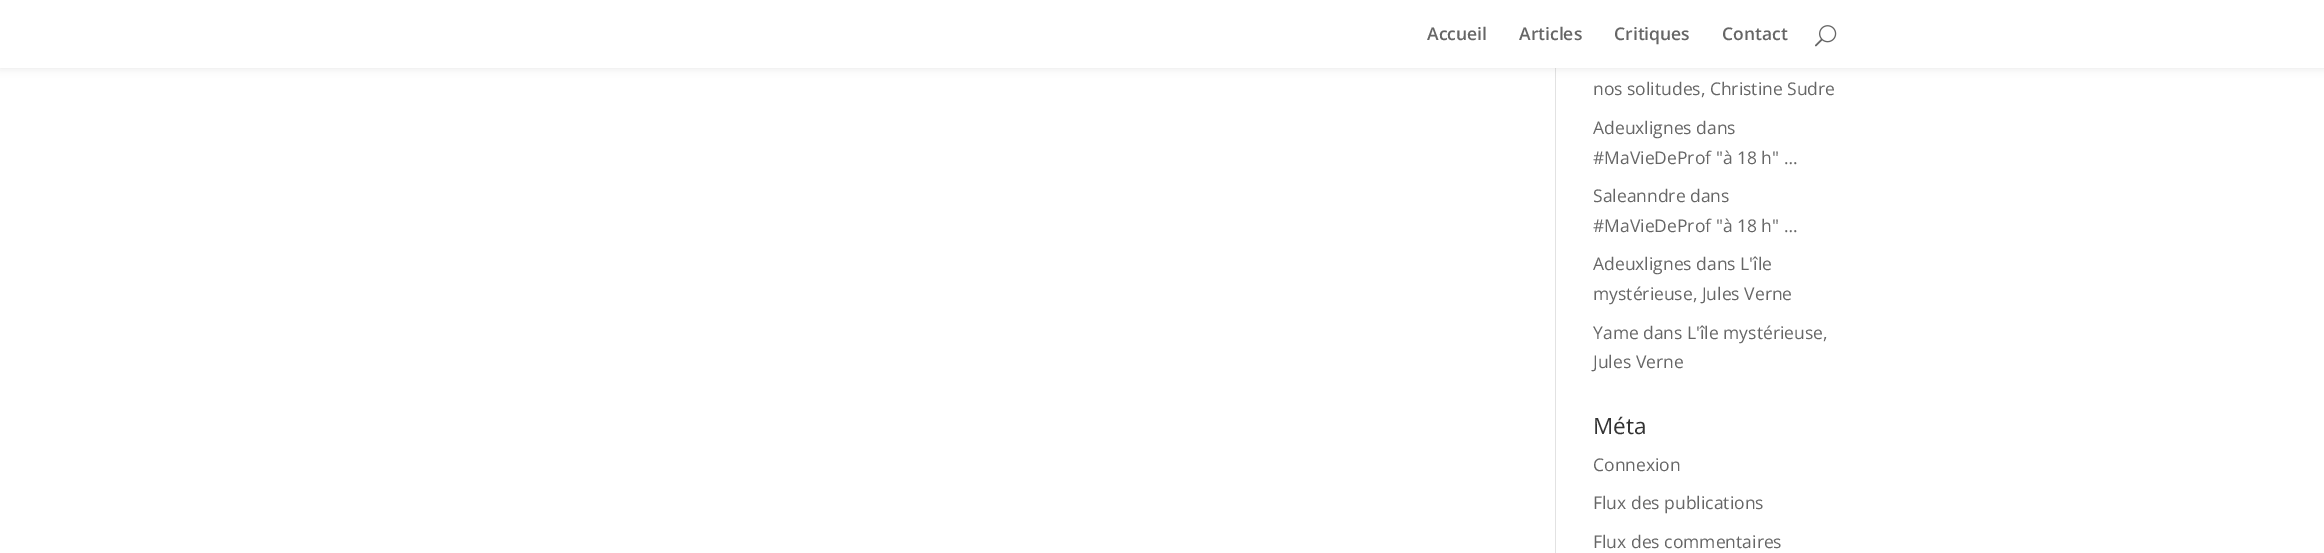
%!PS
<< /PageSize [2324 553] /PageUsesTransparency true >> setpagedevice
/co { dup -16 bitshift 255 div exch dup -8 bitshift 255 and 255 div exch 255 and 255 div setrgbcolor } def
/fn { [ exch dup neg 0 0 3 -1 roll 0 0 ] selectfont } def
/tx { co fn moveto show } def
/bx { co rectfill } def
/al { dup .setfillconstantalpha .setstrokeconstantalpha } def
/rr { 5 dict begin { /r /h /w /y /x } { exch def } forall
  x r add y moveto x w add y 2 copy h add r arct x w add y h add x 1 index r arct
  x y h add x y r arct x y 2 copy exch w add exch r arct closepath end } def
/sh { 12 dict begin { /a /b /q /h /w /y /x } { exch def } forall gsave /was 0 def
  9 -2 -9 { dup b mul 4 div /e exch def 1 sub .425 mul 2.718 exch exp 1 add a .99 .min exch div /now exch def
    1 1 now sub 1 was sub div sub al /was now def
    w h .min e 2 mul add 0 gt { x e sub y e sub w e 2 mul add h e 2 mul add
      q e add b .6 mul add w h .min 2 div e add .min 0 .max rr fill } if } for grestore end } def
/im { 5 dict begin { /h /w /y /x /name } { exch def } forall
  gsave x y translate w h scale
  w h 8 [w 0 0 h 0 0] name (r) file false 3 colorimage grestore end } def
0 .pushpdf14devicefilter
0 553 translate 1 -1 scale
4 setmiterlimit
0 0 2324 553 16#FFFFFF bx
1555 68 1 485 16#E2E2E2 bx
16#000000 co
0 0 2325 68 0 4.5 .1 sh
0 0 2324 68 16#FFFFFF bx
(media/1.raw) 1815 25 22 22 im
(Accueil) 1427 40 /OpenSans-SemiBold 17.5 16#666666 tx
(Articles) 1519 40 /OpenSans-SemiBold 17.5 16#666666 tx
(Critiques) 1614 40 /OpenSans-SemiBold 17.5 16#666666 tx
(Contact) 1722 40 /OpenSans-SemiBold 17.5 16#666666 tx
(nos solitudes, Christine Sudre) 1593 95 /OpenSans-Regular 17.5 16#666666 tx
(Adeuxlignes dans) 1593 134 /OpenSans-Regular 17.5 16#666666 tx
(#MaVieDeProf "à 18 h" …) 1593 164 /OpenSans-Regular 17.5 16#666666 tx
(Saleanndre dans) 1593 202 /OpenSans-Regular 17.5 16#666666 tx
(#MaVieDeProf "à 18 h" …) 1593 232 /OpenSans-Regular 17.5 16#666666 tx
(Adeuxlignes dans L'île) 1593 270 /OpenSans-Regular 17.5 16#666666 tx
(mystérieuse, Jules Verne) 1593 300 /OpenSans-Regular 17.5 16#666666 tx
(Yame dans L'île mystérieuse,) 1593 339 /OpenSans-Regular 17.5 16#666666 tx
(Jules Verne) 1593 368 /OpenSans-Regular 17.5 16#666666 tx
(Méta) 1593 434 /OpenSans-Regular 22.5 16#333333 tx
(Connexion) 1593 471 /OpenSans-Regular 17.5 16#666666 tx
(Flux des publications) 1593 509 /OpenSans-Regular 17.5 16#666666 tx
(Flux des commentaires) 1593 548 /OpenSans-Regular 17.5 16#666666 tx
.poppdf14devicefilter showpage
